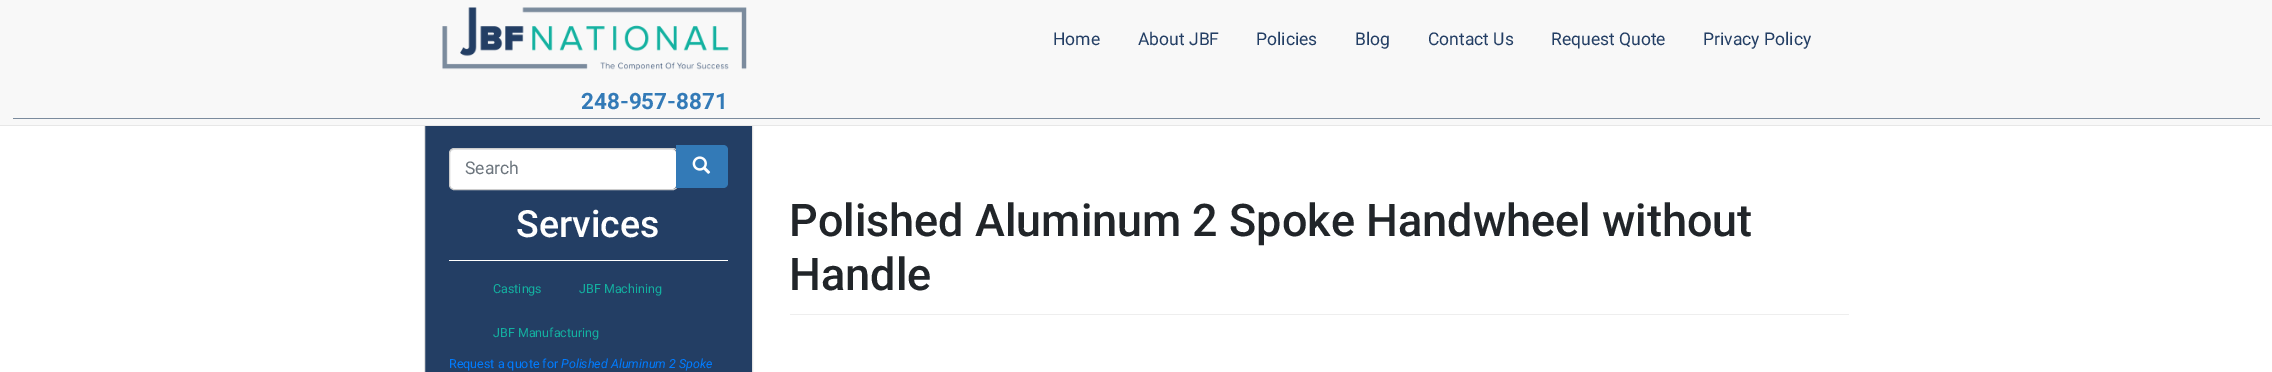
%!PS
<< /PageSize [2272 372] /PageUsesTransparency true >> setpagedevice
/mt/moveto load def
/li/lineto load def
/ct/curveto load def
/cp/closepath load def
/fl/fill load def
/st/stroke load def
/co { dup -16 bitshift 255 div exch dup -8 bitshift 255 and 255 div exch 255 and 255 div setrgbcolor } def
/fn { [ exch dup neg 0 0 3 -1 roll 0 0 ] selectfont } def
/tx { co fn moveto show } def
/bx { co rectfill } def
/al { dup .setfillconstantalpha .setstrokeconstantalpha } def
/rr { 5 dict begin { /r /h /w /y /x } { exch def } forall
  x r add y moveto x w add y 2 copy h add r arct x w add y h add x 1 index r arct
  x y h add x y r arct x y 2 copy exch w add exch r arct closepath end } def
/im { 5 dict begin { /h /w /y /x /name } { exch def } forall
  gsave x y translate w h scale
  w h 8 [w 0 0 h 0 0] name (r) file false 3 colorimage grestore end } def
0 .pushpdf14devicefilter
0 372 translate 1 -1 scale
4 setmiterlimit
0 0 2272 372 16#FFFFFF bx
425 126 327 246 16#233E64 bx
16#E3E3E3 co
424.5 119.5 328 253 rectstroke
0 0 2272 125 16#F8F8F8 bx
0 125 2272 1 16#E7E7E7 bx
13 118 2247 1 16#7B8B9D bx
(media/1.raw) 442 7 305 63 im
16#FFFFFF co
450 149 226 40 4 rr fl
0.07 al
16#000000 co
454 150 mt 672 150 li 675 150 676 152 676 154 ct 676 151 675 149 672 149 ct 454 149 li 451 149 450 151 450 154 ct 450 152 452 150 454 150 ct cp fl
1 al
16#CCCCCC co
449.5 148.5 228 41 4.5 rr st
16#337AB7 co
676 145 mt 723 145 li 726 145 728 147 728 150 ct 728 183 li 728 186 726 188 723 188 ct 676 188 li cp fl
(media/2.raw) 692 156 19 18 im
449 260 279 1 16#FFFFFF bx
790 314 1059 1 16#EEEEEE bx
(Home) 1053 45 /Roboto-Regular 17.5 16#233E64 tx
(About JBF) 1138 45 /Roboto-Regular 17.5 16#233E64 tx
(Policies) 1256 45 /Roboto-Regular 17.5 16#233E64 tx
(Blog) 1355 45 /Roboto-Regular 17.5 16#233E64 tx
(Contact Us) 1428 45 /Roboto-Regular 17.5 16#233E64 tx
(Request Quote) 1551 45 /Roboto-Regular 17.5 16#233E64 tx
(Privacy Policy) 1703 45 /Roboto-Regular 17.5 16#233E64 tx
(248-957-8871) 581 109 /Roboto-Bold 22.5 16#337AB7 tx
(Search) 465 174 /Roboto-Regular 17.5 16#6C757D tx
(Services) 516 237 /Roboto-Medium 37.5 16#FFFFFF tx
(Castings) 493 293 /Roboto-Regular 12.5 16#13B0A0 tx
(JBF Machining) 579 293 /Roboto-Regular 12.5 16#13B0A0 tx
(JBF Manufacturing) 493 337 /Roboto-Regular 12.5 16#13B0A0 tx
(Request a quote for) 449 368 /Roboto-Regular 12.5 16#007BFF tx
(Polished Aluminum 2 Spoke) 561 368 /Roboto-Italic 12.5 16#007BFF tx
(Polished Aluminum 2 Spoke Handwheel without) 789 236 /Roboto-Medium 45 16#212529 tx
(Handle) 789 290 /Roboto-Medium 45 16#212529 tx
.poppdf14devicefilter showpage
